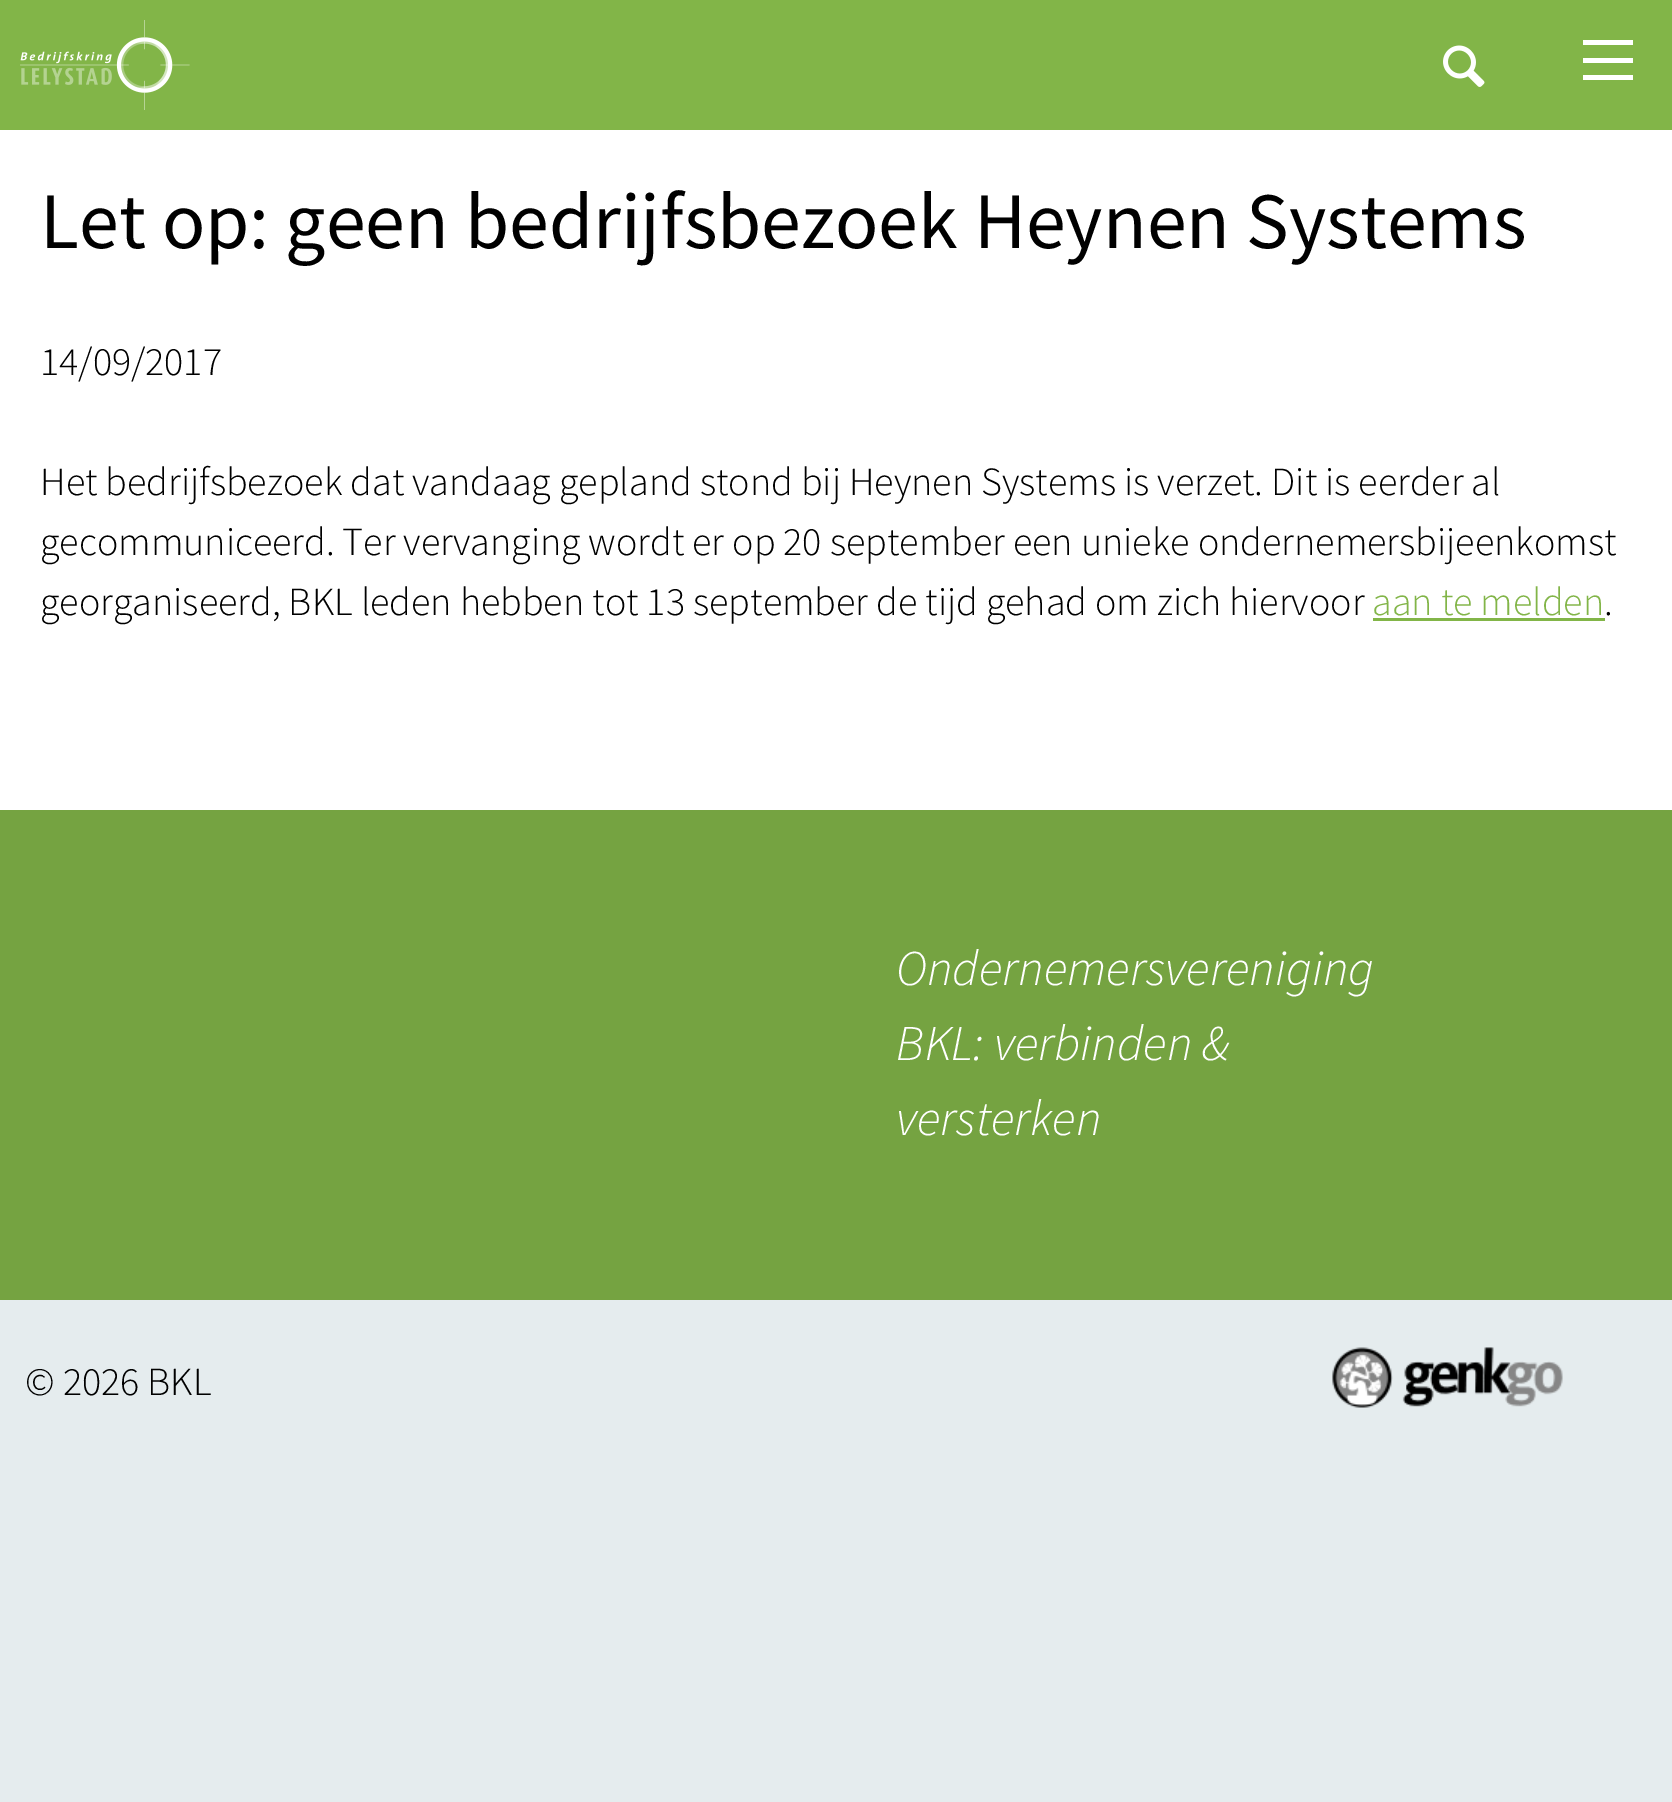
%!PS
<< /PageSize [1672 1802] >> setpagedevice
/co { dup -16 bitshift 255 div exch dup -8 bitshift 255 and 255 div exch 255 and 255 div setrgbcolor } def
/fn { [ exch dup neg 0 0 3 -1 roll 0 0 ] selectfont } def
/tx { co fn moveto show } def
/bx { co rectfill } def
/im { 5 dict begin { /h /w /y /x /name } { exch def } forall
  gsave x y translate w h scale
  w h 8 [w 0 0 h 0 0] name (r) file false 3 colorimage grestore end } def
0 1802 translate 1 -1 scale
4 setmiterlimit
0 0 1672 1802 16#E5ECEE bx
0 0 1672 130 16#82B548 bx
1583 58 50 5 16#FFFFFF bx
1583 40 50 5 16#FFFFFF bx
1583 75 50 5 16#FFFFFF bx
(media/1.raw) 20 20 170 90 im
(media/2.raw) 1443 45 42 42 im
0 130 1672 680 16#FFFFFF bx
1373 618 232 3 16#82B548 bx
0 810 1672 490 16#75A341 bx
(media/3.raw) 1332 1347 231 61 im
(Let op: geen bedrijfsbezoek Heynen Systems) 40 248 /SourceSansPro-Regular 80 16#000000 tx
(14/09/2017) 40 375 /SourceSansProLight-Light 40 16#000000 tx
(Het bedrijfsbezoek dat vandaag gepland stond bij Heynen Systems is verzet. Dit is eerder al) 40 495 /SourceSansProLight-Light 40 16#000000 tx
(gecommuniceerd. Ter vervanging wordt er op 20 september een unieke ondernemersbijeenkomst) 40 555 /SourceSansProLight-Light 40 16#000000 tx
(georganiseerd, BKL leden hebben tot 13 september de tijd gehad om zich hiervoor) 40 615 /SourceSansProLight-Light 40 16#000000 tx
(aan te melden) 1372 615 /SourceSansProLight-Light 40 16#82B548 tx
(.) 1604 615 /SourceSansProLight-Light 40 16#000000 tx
(Ondernemersvereniging) 896 985 /SourceSansProLight-LightItalic 50 16#FFFFFF tx
(BKL: verbinden &) 896 1060 /SourceSansProLight-LightItalic 50 16#FFFFFF tx
(versterken) 896 1135 /SourceSansProLight-LightItalic 50 16#FFFFFF tx
(© 2026 BKL) 25 1395 /SourceSansProLight-Light 40 16#000000 tx
showpage
